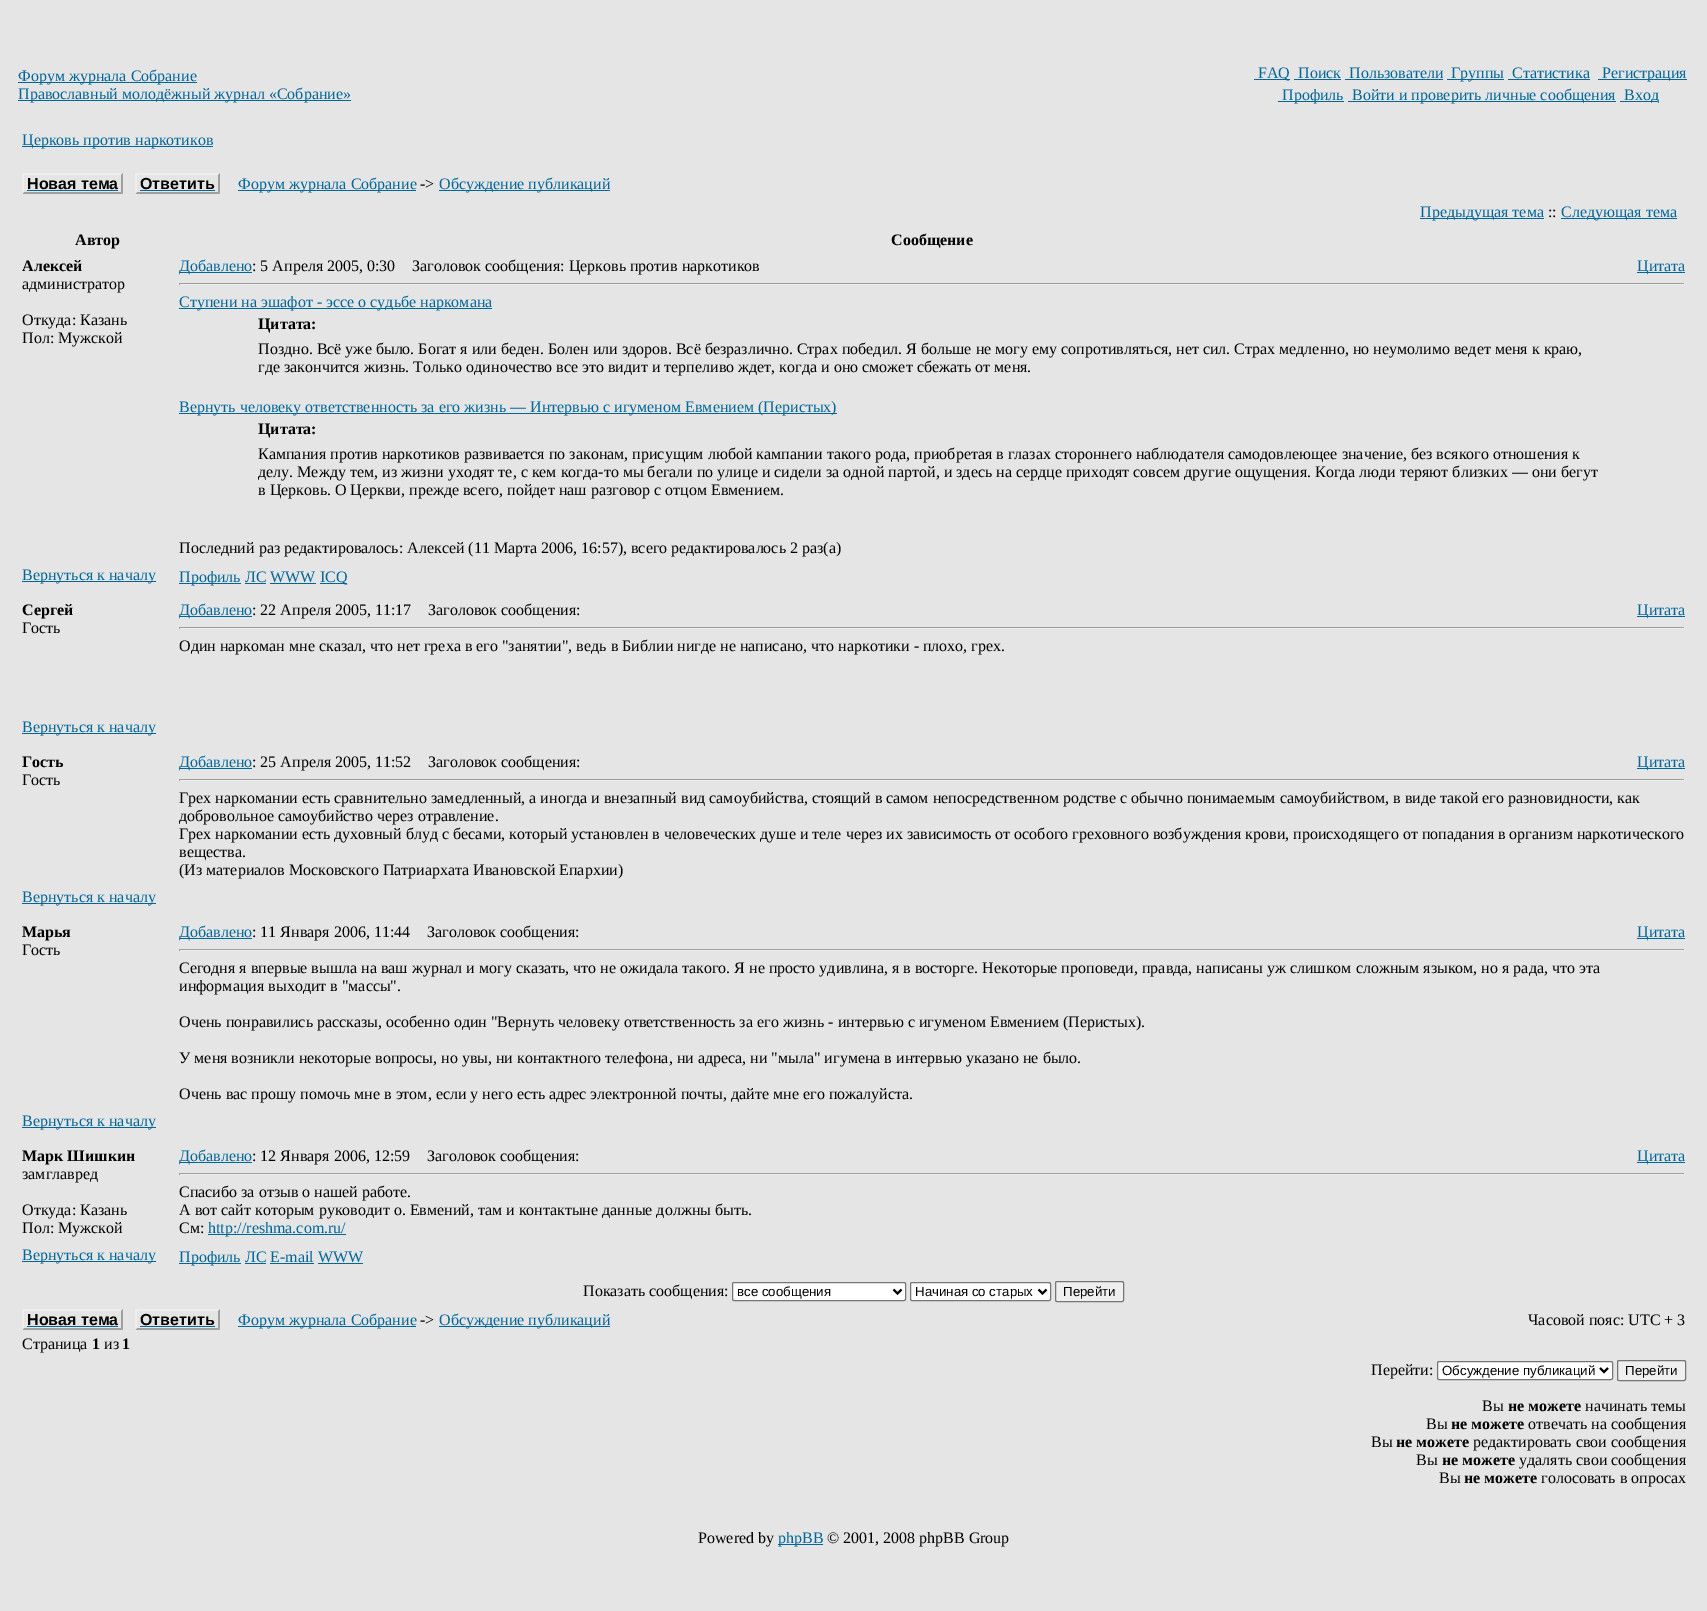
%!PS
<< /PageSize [1707 1611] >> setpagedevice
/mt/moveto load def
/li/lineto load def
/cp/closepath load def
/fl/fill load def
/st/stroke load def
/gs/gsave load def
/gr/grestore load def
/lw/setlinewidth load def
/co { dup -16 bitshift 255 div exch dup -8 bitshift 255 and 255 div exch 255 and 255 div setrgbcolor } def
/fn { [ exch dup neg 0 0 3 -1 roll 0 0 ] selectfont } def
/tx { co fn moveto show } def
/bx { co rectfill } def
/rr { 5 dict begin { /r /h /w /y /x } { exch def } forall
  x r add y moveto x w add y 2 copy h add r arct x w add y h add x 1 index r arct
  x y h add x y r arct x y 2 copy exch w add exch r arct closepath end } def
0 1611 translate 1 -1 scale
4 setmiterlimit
0 0 1707 1611 16#E5E5E5 bx
18 82 179 1 16#006699 bx
18 100 333 1 16#006699 bx
1254 79 36 1 16#006699 bx
1294 79 47 1 16#006699 bx
1345 79 98 1 16#006699 bx
1447 79 57 1 16#006699 bx
1508 79 82 1 16#006699 bx
1598 79 89 1 16#006699 bx
1278 101 66 1 16#006699 bx
1348 101 268 1 16#006699 bx
1620 101 38 1 16#006699 bx
22 146 191 1 16#006699 bx
16#EEEEEE co
22 173 mt 123 173 li 121 175 li 24 175 li cp fl
16#9F9F9F co
123 173 mt 123 194 li 121 192 li 121 175 li cp fl
123 194 mt 22 194 li 24 192 li 121 192 li cp fl
16#EEEEEE co
22 194 mt 22 173 li 24 175 li 24 192 li cp fl
27 190 91 1 16#006699 bx
16#EEEEEE co
135 173 mt 220 173 li 218 175 li 137 175 li cp fl
16#9F9F9F co
220 173 mt 220 194 li 218 192 li 218 175 li cp fl
220 194 mt 135 194 li 137 192 li 218 192 li cp fl
16#EEEEEE co
135 194 mt 135 173 li 137 175 li 137 192 li cp fl
140 190 75 1 16#006699 bx
238 190 178 1 16#006699 bx
439 190 171 1 16#006699 bx
1420 218 124 1 16#006699 bx
1561 218 116 1 16#006699 bx
179 272 73 1 16#006699 bx
1637 272 48 1 16#006699 bx
179 283 1506 1 16#9F9F9F bx
1684 283 1 2 16#EEEEEE bx
179 284 1506 1 16#EEEEEE bx
179 283 1 2 16#9F9F9F bx
179 308 313 1 16#006699 bx
179 413 658 1 16#006699 bx
22 581 134 1 16#006699 bx
179 583 62 1 16#006699 bx
245 583 21 1 16#006699 bx
270 583 46 1 16#006699 bx
320 583 27 1 16#006699 bx
179 616 73 1 16#006699 bx
1637 616 48 1 16#006699 bx
179 627 1506 1 16#9F9F9F bx
1684 627 1 2 16#EEEEEE bx
179 628 1506 1 16#EEEEEE bx
179 627 1 2 16#9F9F9F bx
22 733 134 1 16#006699 bx
179 768 73 1 16#006699 bx
1637 768 48 1 16#006699 bx
179 779 1506 1 16#9F9F9F bx
1684 779 1 2 16#EEEEEE bx
179 780 1506 1 16#EEEEEE bx
179 779 1 2 16#9F9F9F bx
22 903 134 1 16#006699 bx
179 938 73 1 16#006699 bx
1637 938 48 1 16#006699 bx
179 949 1506 1 16#9F9F9F bx
1684 949 1 2 16#EEEEEE bx
179 950 1506 1 16#EEEEEE bx
179 949 1 2 16#9F9F9F bx
22 1127 134 1 16#006699 bx
179 1162 73 1 16#006699 bx
1637 1162 48 1 16#006699 bx
179 1173 1506 1 16#9F9F9F bx
1684 1173 1 2 16#EEEEEE bx
179 1174 1506 1 16#EEEEEE bx
179 1173 1 2 16#9F9F9F bx
208 1234 138 1 16#006699 bx
22 1261 134 1 16#006699 bx
179 1263 62 1 16#006699 bx
245 1263 21 1 16#006699 bx
270 1263 44 1 16#006699 bx
318 1263 45 1 16#006699 bx
16#FFFFFF co
732.5 1282.5 173 18 1.5 rr gs fl gr
16#767676 co
st
16#000000 co
2 lw
893.5 1289.5 mt 897.5 1293.5 li 901.5 1289.5 li st
16#FFFFFF co
910.5 1282.5 140 18 1.5 rr gs fl gr
16#767676 co
1 lw
st
16#000000 co
2 lw
1038.5 1289.5 mt 1042.5 1293.5 li 1046.5 1289.5 li st
16#EFEFEF co
1055.5 1281.5 68 20 1.5 rr gs fl gr
16#767676 co
1 lw
st
16#EEEEEE co
22 1309 mt 123 1309 li 121 1311 li 24 1311 li cp fl
16#9F9F9F co
123 1309 mt 123 1330 li 121 1328 li 121 1311 li cp fl
123 1330 mt 22 1330 li 24 1328 li 121 1328 li cp fl
16#EEEEEE co
22 1330 mt 22 1309 li 24 1311 li 24 1328 li cp fl
27 1326 91 1 16#006699 bx
16#EEEEEE co
135 1309 mt 220 1309 li 218 1311 li 137 1311 li cp fl
16#9F9F9F co
220 1309 mt 220 1330 li 218 1328 li 218 1311 li cp fl
220 1330 mt 135 1330 li 137 1328 li 218 1328 li cp fl
16#EEEEEE co
135 1330 mt 135 1309 li 137 1311 li 137 1328 li cp fl
140 1326 75 1 16#006699 bx
238 1326 178 1 16#006699 bx
439 1326 171 1 16#006699 bx
16#FFFFFF co
1437.5 1361.5 175 18 1.5 rr gs fl gr
16#767676 co
st
16#000000 co
2 lw
1600 1368 mt 1604 1372 li 1608 1368 li st
16#EFEFEF co
1617.5 1360.5 68 20 1.5 rr gs fl gr
16#767676 co
1 lw
st
778 1544 45 1 16#006699 bx
(Форум журнала Собрание) 18 81 /LiberationSerif-Regular 16 16#006699 tx
(Православный молодёжный журнал «Собрание») 18 99 /LiberationSerif-Regular 16 16#006699 tx
(FAQ) 1258 78 /LiberationSerif-Regular 16 16#006699 tx
(Поиск) 1298 78 /LiberationSerif-Regular 16 16#006699 tx
(Пользователи) 1349 78 /LiberationSerif-Regular 16 16#006699 tx
(Группы) 1451 78 /LiberationSerif-Regular 16 16#006699 tx
(Статистика) 1512 78 /LiberationSerif-Regular 16 16#006699 tx
(Регистрация) 1602 78 /LiberationSerif-Regular 16 16#006699 tx
(Профиль) 1282 100 /LiberationSerif-Regular 16 16#006699 tx
(Войти и проверить личные сообщения) 1352 100 /LiberationSerif-Regular 16 16#006699 tx
(Вход) 1624 100 /LiberationSerif-Regular 16 16#006699 tx
(Церковь против наркотиков) 22 145 /LiberationSerif-Regular 16 16#006699 tx
(Новая тема) 27 189 /LiberationSans-Bold 16 16#000000 tx
(Ответить) 140 189 /LiberationSans-Bold 16 16#000000 tx
(Форум журнала Собрание) 238 189 /LiberationSerif-Regular 16 16#006699 tx
(->) 420 189 /LiberationSerif-Regular 16 16#000000 tx
(Обсуждение публикаций) 439 189 /LiberationSerif-Regular 16 16#006699 tx
(Предыдущая тема) 1420 217 /LiberationSerif-Regular 16 16#006699 tx
(::) 1548 217 /LiberationSerif-Regular 16 16#000000 tx
(Следующая тема) 1561 217 /LiberationSerif-Regular 16 16#006699 tx
(Автор) 75 245 /LiberationSerif-Bold 16 16#000000 tx
(Сообщение) 891 245 /LiberationSerif-Bold 16 16#000000 tx
(Алексей) 22 271 /LiberationSerif-Bold 16 16#000000 tx
(администратор) 22 289 /LiberationSerif-Regular 16 16#000000 tx
(Откуда: Казань) 22 325 /LiberationSerif-Regular 16 16#000000 tx
(Пол: Мужской) 22 343 /LiberationSerif-Regular 16 16#000000 tx
(Добавлено) 179 271 /LiberationSerif-Regular 16 16#006699 tx
(: 5 Апреля 2005, 0:30) 252 271 /LiberationSerif-Regular 16 16#000000 tx
(Заголовок сообщения: Церковь против наркотиков) 412 271 /LiberationSerif-Regular 16 16#000000 tx
(Цитата) 1637 271 /LiberationSerif-Regular 16 16#006699 tx
(Ступени на эшафот - эссе о судьбе наркомана) 179 307 /LiberationSerif-Regular 16 16#006699 tx
(Цитата:) 258 329 /LiberationSerif-Bold 16 16#000000 tx
(Поздно. Всё уже было. Богат я или беден. Болен или здоров. Всё безразлично. Страх победил. Я больше не могу ему сопротивляться, нет сил. Страх медленно, но неумолимо ведет меня к краю,) 258 354 /LiberationSerif-Regular 16 16#000000 tx
(где закончится жизнь. Только одиночество все это видит и терпеливо ждет, когда и оно сможет сбежать от меня.) 258 372 /LiberationSerif-Regular 16 16#000000 tx
(Вернуть человеку ответственность за его жизнь — Интервью с игуменом Евмением \(Перистых\)) 179 412 /LiberationSerif-Regular 16 16#006699 tx
(Цитата:) 258 434 /LiberationSerif-Bold 16 16#000000 tx
(Кампания против наркотиков развивается по законам, присущим любой кампании такого рода, приобретая в глазах стороннего наблюдателя самодовлеющее значение, без всякого отношения к) 258 459 /LiberationSerif-Regular 16 16#000000 tx
(делу. Между тем, из жизни уходят те, с кем когда-то мы бегали по улице и сидели за одной партой, и здесь на сердце приходят совсем другие ощущения. Когда люди теряют близких — они бегут) 258 477 /LiberationSerif-Regular 16 16#000000 tx
(в Церковь. О Церкви, прежде всего, пойдет наш разговор с отцом Евмением.) 258 495 /LiberationSerif-Regular 16 16#000000 tx
(Последний раз редактировалось: Алексей \(11 Марта 2006, 16:57\), всего редактировалось 2 раз\(а\)) 179 553 /LiberationSerif-Regular 16 16#000000 tx
(Вернуться к началу) 22 580 /LiberationSerif-Regular 16 16#006699 tx
(Профиль ЛС WWW) 179 582 /LiberationSerif-Regular 16 16#006699 tx
(ICQ) 320 582 /LiberationSerif-Regular 16 16#006699 tx
(Сергей) 22 615 /LiberationSerif-Bold 16 16#000000 tx
(Гость) 22 633 /LiberationSerif-Regular 16 16#000000 tx
(Добавлено) 179 615 /LiberationSerif-Regular 16 16#006699 tx
(: 22 Апреля 2005, 11:17) 252 615 /LiberationSerif-Regular 16 16#000000 tx
(Заголовок сообщения:) 428 615 /LiberationSerif-Regular 16 16#000000 tx
(Цитата) 1637 615 /LiberationSerif-Regular 16 16#006699 tx
(Один наркоман мне сказал, что нет греха в его "занятии", ведь в Библии нигде не написано, что наркотики - плохо, грех.) 179 651 /LiberationSerif-Regular 16 16#000000 tx
(Вернуться к началу) 22 732 /LiberationSerif-Regular 16 16#006699 tx
(Гость) 22 767 /LiberationSerif-Bold 16 16#000000 tx
(Гость) 22 785 /LiberationSerif-Regular 16 16#000000 tx
(Добавлено) 179 767 /LiberationSerif-Regular 16 16#006699 tx
(: 25 Апреля 2005, 11:52) 252 767 /LiberationSerif-Regular 16 16#000000 tx
(Заголовок сообщения:) 428 767 /LiberationSerif-Regular 16 16#000000 tx
(Цитата) 1637 767 /LiberationSerif-Regular 16 16#006699 tx
(Грех наркомании есть сравнительно замедленный, а иногда и внезапный вид самоубийства, стоящий в самом непосредственном родстве с обычно понимаемым самоубийством, в виде такой его разновидности, как) 179 803 /LiberationSerif-Regular 16 16#000000 tx
(добровольное самоубийство через отравление.) 179 821 /LiberationSerif-Regular 16 16#000000 tx
(Грех наркомании есть духовный блуд с бесами, который установлен в человеческих душе и теле через их зависимость от особого греховного возбуждения крови, происходящего от попадания в организм наркотического) 179 839 /LiberationSerif-Regular 16 16#000000 tx
(вещества.) 179 857 /LiberationSerif-Regular 16 16#000000 tx
(\(Из материалов Московского Патриархата Ивановской Епархии\)) 179 875 /LiberationSerif-Regular 16 16#000000 tx
(Вернуться к началу) 22 902 /LiberationSerif-Regular 16 16#006699 tx
(Марья) 22 937 /LiberationSerif-Bold 16 16#000000 tx
(Гость) 22 955 /LiberationSerif-Regular 16 16#000000 tx
(Добавлено) 179 937 /LiberationSerif-Regular 16 16#006699 tx
(: 11 Января 2006, 11:44) 252 937 /LiberationSerif-Regular 16 16#000000 tx
(Заголовок сообщения:) 427 937 /LiberationSerif-Regular 16 16#000000 tx
(Цитата) 1637 937 /LiberationSerif-Regular 16 16#006699 tx
(Сегодня я впервые вышла на ваш журнал и могу сказать, что не ожидала такого. Я не просто удивлина, я в восторге. Некоторые проповеди, правда, написаны уж слишком сложным языком, но я рада, что эта) 179 973 /LiberationSerif-Regular 16 16#000000 tx
(информация выходит в "массы".) 179 991 /LiberationSerif-Regular 16 16#000000 tx
(Очень понравились рассказы, особенно один "Вернуть человеку ответственность за его жизнь - интервью с игуменом Евмением \(Перистых\).) 179 1027 /LiberationSerif-Regular 16 16#000000 tx
(У меня возникли некоторые вопросы, но увы, ни контактного телефона, ни адреса, ни "мыла" игумена в интервью указано не было.) 179 1063 /LiberationSerif-Regular 16 16#000000 tx
(Очень вас прошу помочь мне в этом, если у него есть адрес электронной почты, дайте мне его пожалуйста.) 179 1099 /LiberationSerif-Regular 16 16#000000 tx
(Вернуться к началу) 22 1126 /LiberationSerif-Regular 16 16#006699 tx
(Марк Шишкин) 22 1161 /LiberationSerif-Bold 16 16#000000 tx
(замглавред) 22 1179 /LiberationSerif-Regular 16 16#000000 tx
(Откуда: Казань) 22 1215 /LiberationSerif-Regular 16 16#000000 tx
(Пол: Мужской) 22 1233 /LiberationSerif-Regular 16 16#000000 tx
(Добавлено) 179 1161 /LiberationSerif-Regular 16 16#006699 tx
(: 12 Января 2006, 12:59) 252 1161 /LiberationSerif-Regular 16 16#000000 tx
(Заголовок сообщения:) 427 1161 /LiberationSerif-Regular 16 16#000000 tx
(Цитата) 1637 1161 /LiberationSerif-Regular 16 16#006699 tx
(Спасибо за отзыв о нашей работе.) 179 1197 /LiberationSerif-Regular 16 16#000000 tx
(А вот сайт которым руководит о. Евмений, там и контактыне данные должны быть.) 179 1215 /LiberationSerif-Regular 16 16#000000 tx
(См:) 179 1233 /LiberationSerif-Regular 16 16#000000 tx
(http://reshma.com.ru/) 208 1233 /LiberationSerif-Regular 16 16#006699 tx
(Вернуться к началу) 22 1260 /LiberationSerif-Regular 16 16#006699 tx
(Профиль ЛС E-mail WWW) 179 1262 /LiberationSerif-Regular 16 16#006699 tx
(Показать сообщения:) 583 1296 /LiberationSerif-Regular 16 16#000000 tx
(все сообщения) 737 1296 /LiberationSans-Regular 13.25 16#000000 tx
(Начиная со старых) 915 1296 /LiberationSans-Regular 13.25 16#000000 tx
(Перейти) 1063 1296 /LiberationSans-Regular 13.25 16#000000 tx
(Новая тема) 27 1325 /LiberationSans-Bold 16 16#000000 tx
(Ответить) 140 1325 /LiberationSans-Bold 16 16#000000 tx
(Форум журнала Собрание) 238 1325 /LiberationSerif-Regular 16 16#006699 tx
(->) 420 1325 /LiberationSerif-Regular 16 16#000000 tx
(Обсуждение публикаций) 439 1325 /LiberationSerif-Regular 16 16#006699 tx
(Часовой пояс: UTC + 3) 1528 1325 /LiberationSerif-Regular 16 16#000000 tx
(Страница) 22 1349 /LiberationSerif-Regular 16 16#000000 tx
(1) 92 1349 /LiberationSerif-Bold 16 16#000000 tx
(из) 104 1349 /LiberationSerif-Regular 16 16#000000 tx
(1) 122 1349 /LiberationSerif-Bold 16 16#000000 tx
(Перейти:) 1371 1375 /LiberationSerif-Regular 16 16#000000 tx
(Обсуждение публикаций) 1442 1375 /LiberationSans-Regular 13.25 16#000000 tx
(Перейти) 1625 1375 /LiberationSans-Regular 13.25 16#000000 tx
(Вы) 1482 1411 /LiberationSerif-Regular 16 16#000000 tx
(не можете) 1508 1411 /LiberationSerif-Bold 16 16#000000 tx
(начинать темы) 1585 1411 /LiberationSerif-Regular 16 16#000000 tx
(Вы) 1426 1429 /LiberationSerif-Regular 16 16#000000 tx
(не можете) 1451 1429 /LiberationSerif-Bold 16 16#000000 tx
(отвечать на сообщения) 1528 1429 /LiberationSerif-Regular 16 16#000000 tx
(Вы) 1371 1447 /LiberationSerif-Regular 16 16#000000 tx
(не можете) 1396 1447 /LiberationSerif-Bold 16 16#000000 tx
(редактировать свои сообщения) 1473 1447 /LiberationSerif-Regular 16 16#000000 tx
(Вы) 1416 1465 /LiberationSerif-Regular 16 16#000000 tx
(не можете) 1442 1465 /LiberationSerif-Bold 16 16#000000 tx
(удалять свои сообщения) 1519 1465 /LiberationSerif-Regular 16 16#000000 tx
(Вы) 1439 1483 /LiberationSerif-Regular 16 16#000000 tx
(не можете) 1464 1483 /LiberationSerif-Bold 16 16#000000 tx
(голосовать в опросах) 1541 1483 /LiberationSerif-Regular 16 16#000000 tx
(Powered by) 698 1543 /LiberationSerif-Regular 16 16#000000 tx
(phpBB) 778 1543 /LiberationSerif-Regular 16 16#006699 tx
(© 2001, 2008 phpBB Group) 827 1543 /LiberationSerif-Regular 16 16#000000 tx
showpage
